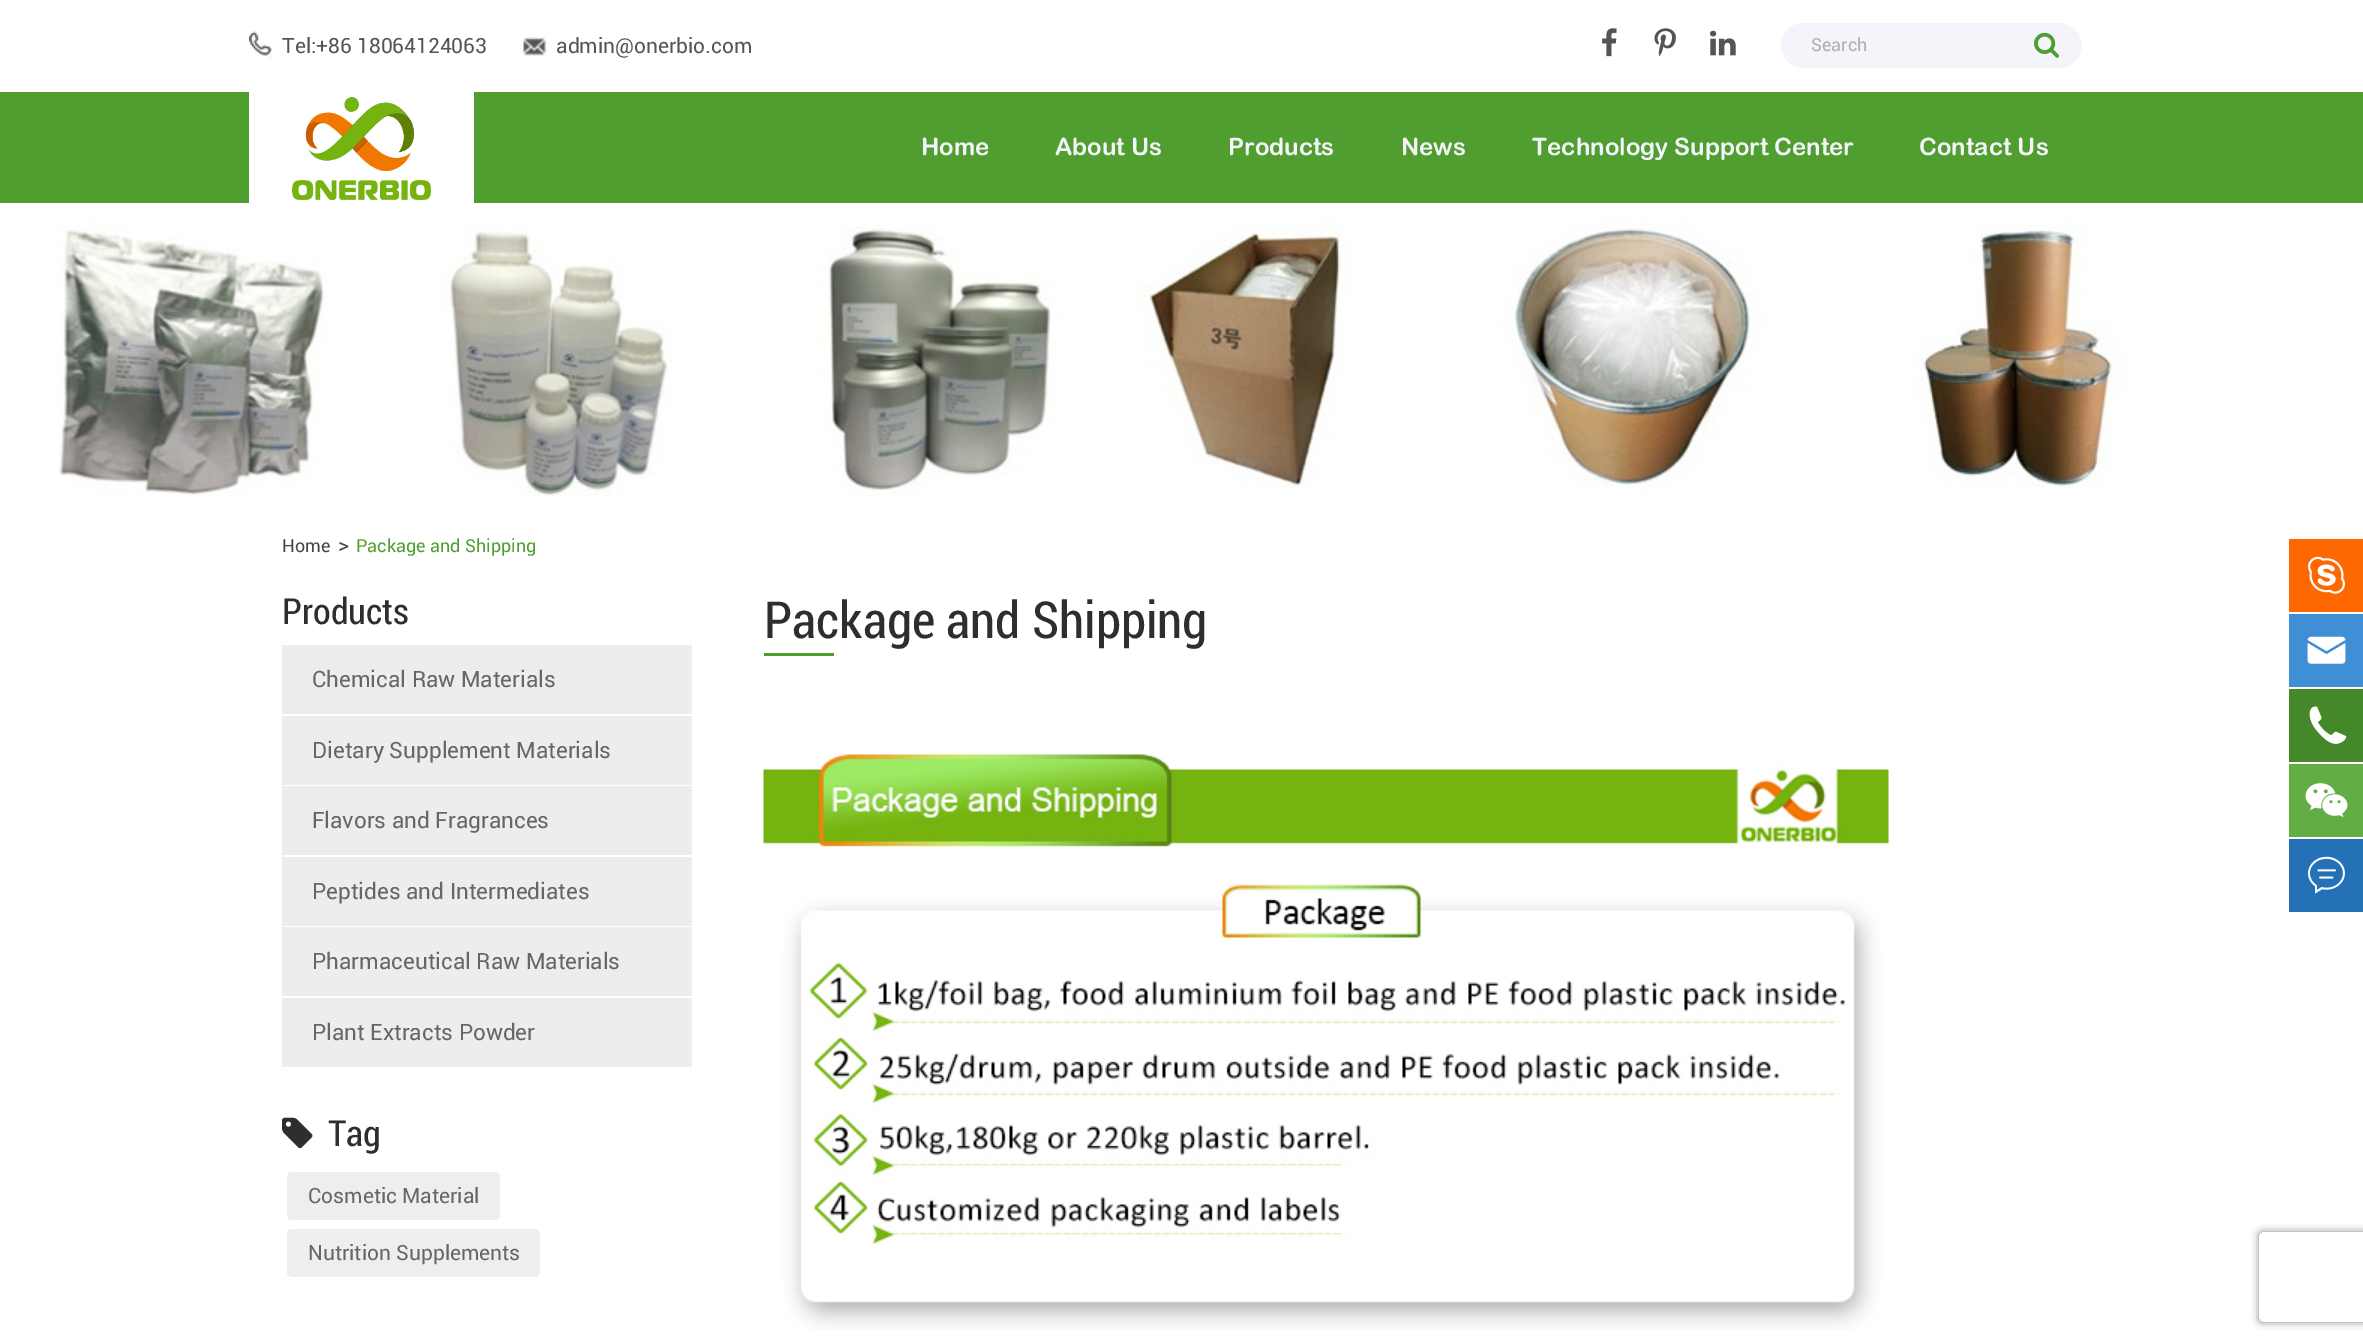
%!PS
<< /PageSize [2363 1342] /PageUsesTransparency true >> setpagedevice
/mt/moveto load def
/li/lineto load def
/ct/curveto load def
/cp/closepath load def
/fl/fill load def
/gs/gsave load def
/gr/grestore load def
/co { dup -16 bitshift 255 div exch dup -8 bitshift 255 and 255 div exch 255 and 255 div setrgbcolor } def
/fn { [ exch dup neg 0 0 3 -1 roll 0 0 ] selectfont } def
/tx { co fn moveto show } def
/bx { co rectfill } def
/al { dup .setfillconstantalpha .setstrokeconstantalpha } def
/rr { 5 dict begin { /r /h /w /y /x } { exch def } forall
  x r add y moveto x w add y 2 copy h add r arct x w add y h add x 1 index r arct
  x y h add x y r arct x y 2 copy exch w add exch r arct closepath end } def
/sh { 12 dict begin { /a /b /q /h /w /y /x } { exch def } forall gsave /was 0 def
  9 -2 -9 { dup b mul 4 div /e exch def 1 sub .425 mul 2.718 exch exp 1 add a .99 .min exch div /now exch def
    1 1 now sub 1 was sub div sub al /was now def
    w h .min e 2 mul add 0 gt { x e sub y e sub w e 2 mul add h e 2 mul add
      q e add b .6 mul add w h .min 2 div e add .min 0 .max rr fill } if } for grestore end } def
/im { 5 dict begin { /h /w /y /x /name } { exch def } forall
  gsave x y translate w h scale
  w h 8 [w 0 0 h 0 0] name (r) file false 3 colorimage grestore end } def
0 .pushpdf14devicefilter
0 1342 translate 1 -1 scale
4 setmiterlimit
0 0 2363 1342 16#FFFFFF bx
0 92 2363 111 16#509E2F bx
(media/1.raw) 249 31 23 28 im
(media/2.raw) 523 37 24 19 im
(media/3.raw) 1602 28 15 29 im
(media/4.raw) 1654 28 22 29 im
(media/5.raw) 1710 30 26 26 im
16#F4F5FB co
1781 23 301 45 22.5 rr fl
(media/6.raw) 2034 32 25 26 im
249 92 225 111 16#FFFFFF bx
(media/7.raw) 292 97 139 103 im
(media/8.raw) 58 218 2072 280 im
2289 539 74 73 16#FF6800 bx
(media/9.raw) 2308 556 37 38 im
2289 614 74 73 16#408ED6 bx
(media/10.raw) 2307 636 39 28 im
2289 689 74 73 16#45882A bx
(media/11.raw) 2309 706 38 38 im
2289 764 74 73 16#62AD44 bx
(media/12.raw) 2305 783 43 35 im
2289 839 74 73 16#2571B7 bx
(media/13.raw) 2308 856 37 38 im
282 645 410 69 16#EDEDED bx
282 716 410 69 16#EDEDED bx
282 786 410 69 16#EDEDED bx
282 857 410 69 16#EDEDED bx
282 927 410 69 16#EDEDED bx
282 998 410 69 16#EDEDED bx
(media/14.raw) 282 1117 31 32 im
16#EEEEEE co
287 1172 213 48 5 rr fl
287 1229 253 48 5 rr fl
764 653 70 3 16#509E2F bx
(media/15.raw) 763 754 1126 576 im
gs
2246 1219 mt 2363 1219 li 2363 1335 li 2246 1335 li cp 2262 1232 mt 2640 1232 li 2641.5 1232 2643 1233.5 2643 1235 ct 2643 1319 li 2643 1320.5 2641.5 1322 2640 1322 ct 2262 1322 li 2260.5 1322 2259 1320.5 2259 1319 ct 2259 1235 li 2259 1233.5 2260.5 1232 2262 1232 ct cp eoclip newpath
16#808080 co
2259 1232 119 90 3 4 1 sh
gr
(Tel:+86 18064124063) 282 53 /Roboto-Regular 21 16#545454 tx
(admin@onerbio.com) 556 53 /Roboto-Regular 21 16#545454 tx
(Search) 1811 51 /Roboto-Regular 18 16#AEAEAE tx
(Home) 921 155 /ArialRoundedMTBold-Bold 24 16#F4F5FB tx
(About Us) 1055 155 /ArialRoundedMTBold-Bold 24 16#F4F5FB tx
(Products) 1228 155 /ArialRoundedMTBold-Bold 24 16#F4F5FB tx
(News) 1401 155 /ArialRoundedMTBold-Bold 24 16#F4F5FB tx
(Technology Support Center) 1532 155 /ArialRoundedMTBold-Bold 24 16#F4F5FB tx
(Contact Us) 1919 155 /ArialRoundedMTBold-Bold 24 16#F4F5FB tx
(Home) 282 552 /Roboto-Regular 18 16#454545 tx
(>) 338 552 /Roboto-Regular 21 16#454545 tx
(Package and Shipping) 356 552 /Roboto-Regular 18 16#509E2F tx
(Products) 282 624 /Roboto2-Regular 36 16#2E2E2E tx
(Chemical Raw Materials) 312 687 /Roboto-Regular 22.5 16#666666 tx
(Dietary Supplement Materials) 312 758 /Roboto-Regular 22.5 16#666666 tx
(Flavors and Fragrances) 312 828 /Roboto-Regular 22.5 16#666666 tx
(Peptides and Intermediates) 312 899 /Roboto-Regular 22.5 16#666666 tx
(Pharmaceutical Raw Materials) 312 969 /Roboto-Regular 22.5 16#666666 tx
(Plant Extracts Powder) 312 1040 /Roboto-Regular 22.5 16#666666 tx
(Tag) 328 1146 /Roboto2-Regular 36 16#2E2E2E tx
(Cosmetic Material) 308 1203 /Roboto-Regular 21 16#666666 tx
(Nutrition Supplements) 308 1260 /Roboto-Regular 21 16#666666 tx
(Package and Shipping) 764 638 /Roboto2-Regular 51 16#2E2E2E tx
.poppdf14devicefilter showpage
